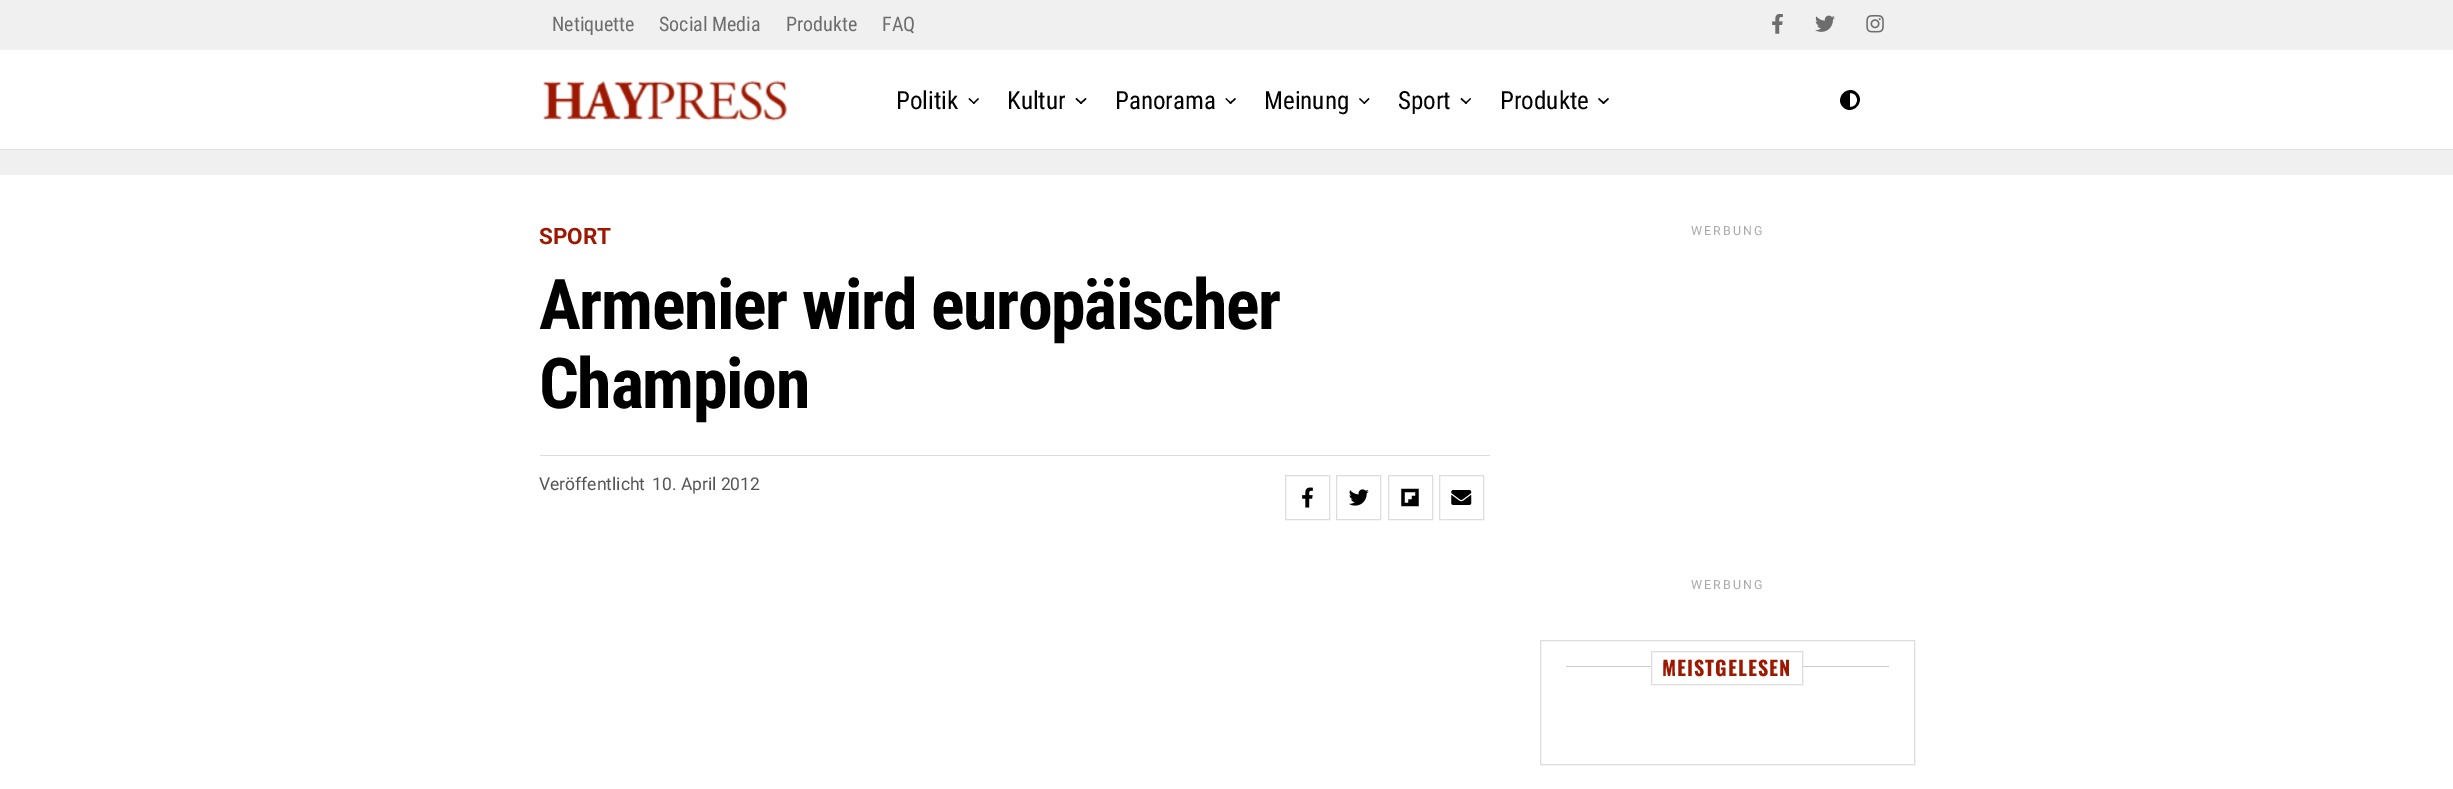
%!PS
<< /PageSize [2453 789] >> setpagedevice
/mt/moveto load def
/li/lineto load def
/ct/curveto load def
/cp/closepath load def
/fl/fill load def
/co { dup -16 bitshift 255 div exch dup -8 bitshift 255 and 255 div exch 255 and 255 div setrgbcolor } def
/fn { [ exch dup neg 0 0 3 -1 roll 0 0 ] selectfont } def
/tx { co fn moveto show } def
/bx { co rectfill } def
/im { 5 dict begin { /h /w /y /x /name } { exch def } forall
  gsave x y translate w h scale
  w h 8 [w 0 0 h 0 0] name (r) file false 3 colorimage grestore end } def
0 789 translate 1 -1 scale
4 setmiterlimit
0 0 2453 789 16#F0F0F0 bx
(media/1.raw) 1772 14 11 20 im
(media/2.raw) 1815 15 20 17 im
(media/3.raw) 1866 15 18 18 im
0 50 2453 99 16#FFFFFF bx
0 149 2453 1 16#DDDDDD bx
(media/4.raw) 543 80 244 41 im
16#000000 co
978 98 mt 979 99 li 974 104 li 973 103 li cp fl
969.5 98 mt 974.5 103 li 974 104 li 968.5 99 li cp fl
1085.5 98 mt 1086.5 99 li 1081 104 li 1080 103 li cp fl
1076.5 98 mt 1082 103 li 1081 104 li 1075.5 99 li cp fl
1235 98 mt 1236 99 li 1230.5 104 li 1229.5 103 li cp fl
1226 98 mt 1231.5 103 li 1230.5 104 li 1225.5 99 li cp fl
1368.5 98 mt 1369.5 99 li 1364.5 104 li 1363.5 103 li cp fl
1360 98 mt 1365 103 li 1364.5 104 li 1359 99 li cp fl
1470.5 98 mt 1471 99 li 1466 104 li 1465 103 li cp fl
1461.5 98 mt 1467 103 li 1466 104 li 1460.5 99 li cp fl
1608 98 mt 1609 99 li 1603.5 104 li 1602.5 103 li cp fl
1599 98 mt 1604.5 103 li 1603.5 104 li 1598 99 li cp fl
1843 107 mt 1834 98 1848 84 1857 93 ct 1866 102 1852 116 1843 107 ct cp 1850 107 mt 1859.5 107 1859.5 93 1850 93 ct cp fl
0 175 2453 614 16#FFFFFF bx
540 455 950 1 16#DDDDDD bx
1285.5 475.5 44 44 rectstroke
(media/5.raw) 1302 487 11 21 im
1336.5 475.5 44 44 rectstroke
(media/6.raw) 1349 489 20 17 im
1388.5 475.5 44 44 rectstroke
(media/7.raw) 1401 488 18 19 im
1439.5 475.5 44 44 rectstroke
(media/8.raw) 1451 490 21 15 im
1540.5 640.5 374 124 rectstroke
1566 666 323 1 16#CCCCCC bx
1652 666 150 1 16#FFFFFF bx
16#DDDDDD co
1651.5 651.5 151 33 rectstroke
(Netiquette) 552 31 /RobotoCondensed-Regular 20 16#6D6D6D tx
(Social Media) 659 31 /RobotoCondensed-Regular 20 16#6D6D6D tx
(Produkte) 786 31 /RobotoCondensed-Regular 20 16#6D6D6D tx
(FAQ) 882 31 /RobotoCondensed-Regular 20 16#6D6D6D tx
(Politik) 896 109 /RobotoCondensed-Regular 25 16#000000 tx
(Kultur) 1007 109 /RobotoCondensed-Regular 25 16#000000 tx
(Panorama) 1115 109 /RobotoCondensed-Regular 25 16#000000 tx
(Meinung) 1264 109 /RobotoCondensed-Regular 25 16#000000 tx
(Sport) 1398 109 /RobotoCondensed-Regular 25 16#000000 tx
(Produkte) 1500 109 /RobotoCondensed-Regular 25 16#000000 tx
(SPORT) 539 244 /Roboto-Bold 22.5 16#9C1801 tx
/RobotoCondensed-Bold 70 fn
16#000000 co
539 329 mt -1.4 0 (Armenier wird europäischer) ashow
539 408 mt -1.4 0 (Champion) ashow
(Veröffentlicht) 539 490 /Roboto-Regular 17.5 16#555555 tx
(10. April 2012) 652 490 /Roboto-Regular 17.5 16#555555 tx
/Roboto-Regular 12.5 fn
16#AAAAAA co
1691 235 mt 2 0 (WERBUNG) ashow
1691 589 mt 2 0 (WERBUNG) ashow
/Oswald-Bold 20 fn
16#9C1801 co
1662 676 mt 1 0 (MEISTGELESEN) ashow
showpage
